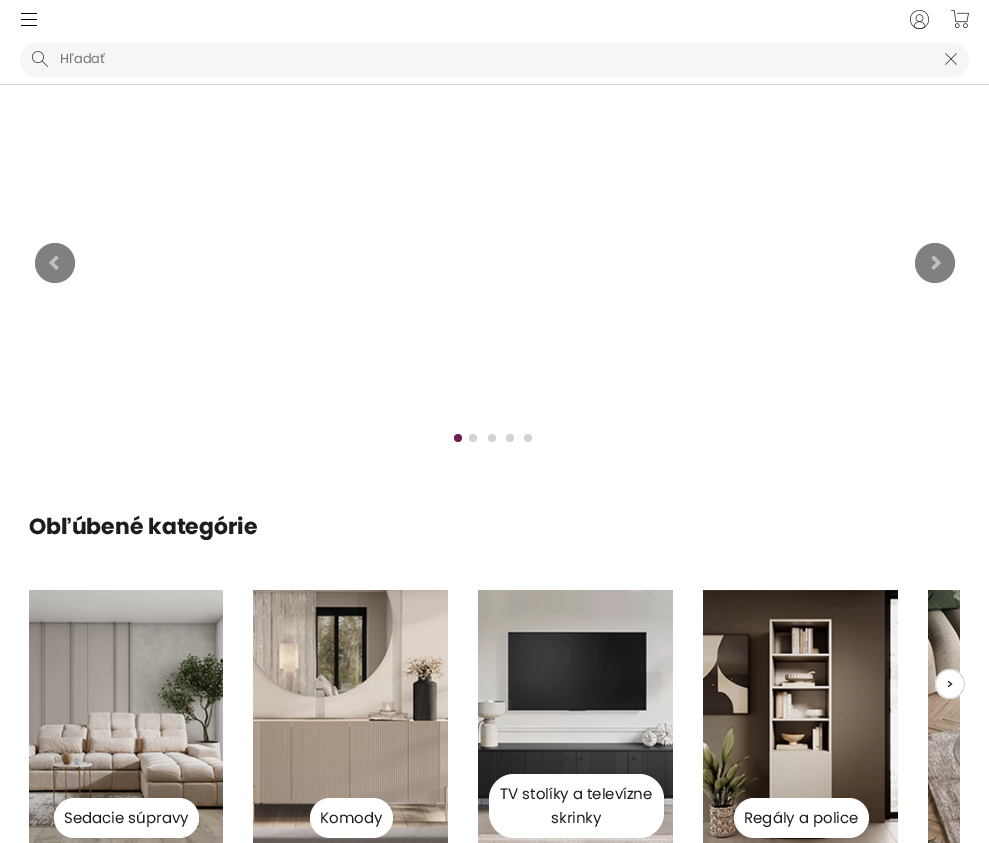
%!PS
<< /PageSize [989 843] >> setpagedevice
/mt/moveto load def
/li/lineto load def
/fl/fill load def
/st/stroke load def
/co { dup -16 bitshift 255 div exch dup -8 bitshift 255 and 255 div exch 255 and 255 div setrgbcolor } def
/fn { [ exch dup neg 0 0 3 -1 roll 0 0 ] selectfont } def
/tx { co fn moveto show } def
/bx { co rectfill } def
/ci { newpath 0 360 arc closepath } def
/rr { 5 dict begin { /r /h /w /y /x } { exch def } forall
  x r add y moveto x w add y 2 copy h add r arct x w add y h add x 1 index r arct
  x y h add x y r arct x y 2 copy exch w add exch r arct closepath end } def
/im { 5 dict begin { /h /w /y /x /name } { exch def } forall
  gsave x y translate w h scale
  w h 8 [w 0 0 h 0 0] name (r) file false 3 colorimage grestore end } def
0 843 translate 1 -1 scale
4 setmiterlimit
0 0 989 843 16#FFFFFF bx
0 84 989 1 16#D5D5D5 bx
21 13 16 1 16#000000 bx
21 19 16 1 16#000000 bx
21 25 16 1 16#000000 bx
(media/1.raw) 910 10 19 19 im
(media/2.raw) 951 10 18 18 im
16#F6F6F6 co
20 43 949 34 17 rr fl
(media/3.raw) 32 51 16 16 im
(media/4.raw) 945 53 12 12 im
16#808080 co
55 263 20 ci fl
(media/5.raw) 49 255 10 15 im
935 263 20 ci fl
(media/6.raw) 931 255 10 15 im
16#701F51 co
458 438 4 ci fl
16#D3D3D3 co
473 438 4 ci fl
492 438 4 ci fl
510 438 4 ci fl
528 438 4 ci fl
(media/11.raw) 928 590 32 253 im
16#FFFFFF co
950 684 15 ci fl
16#1D1D1B co
1 setlinecap
948.5 681.5 mt 951.5 684 li 948.5 686.5 li st
16#D8D8D8 co
0 setlinecap
950 684 14.5 ci st
(media/7.raw) 29 590 194 253 im
16#FFFFFF co
54 798 145 40 20 rr fl
(media/8.raw) 253 590 195 253 im
310 798 83 40 20 rr fl
(media/9.raw) 478 590 195 253 im
489 774 175 64 25 rr fl
(media/10.raw) 703 590 195 253 im
734 798 135 40 20 rr fl
(Hľadať) 60 63 /Poppins-Regular 13 16#757575 tx
(Obľúbené kategórie) 29 534 /Poppins-Bold 22 16#1D1D1B tx
(Sedacie súpravy) 64 823 /Poppins-Regular 15 16#1D1D1B tx
(Komody) 320 823 /Poppins-Regular 15 16#1D1D1B tx
(TV stolíky a televízne) 500 799 /Poppins-Regular 15 16#1D1D1B tx
(skrinky) 551 823 /Poppins-Regular 15 16#1D1D1B tx
(Regály a police) 744 823 /Poppins-Regular 15 16#1D1D1B tx
showpage
